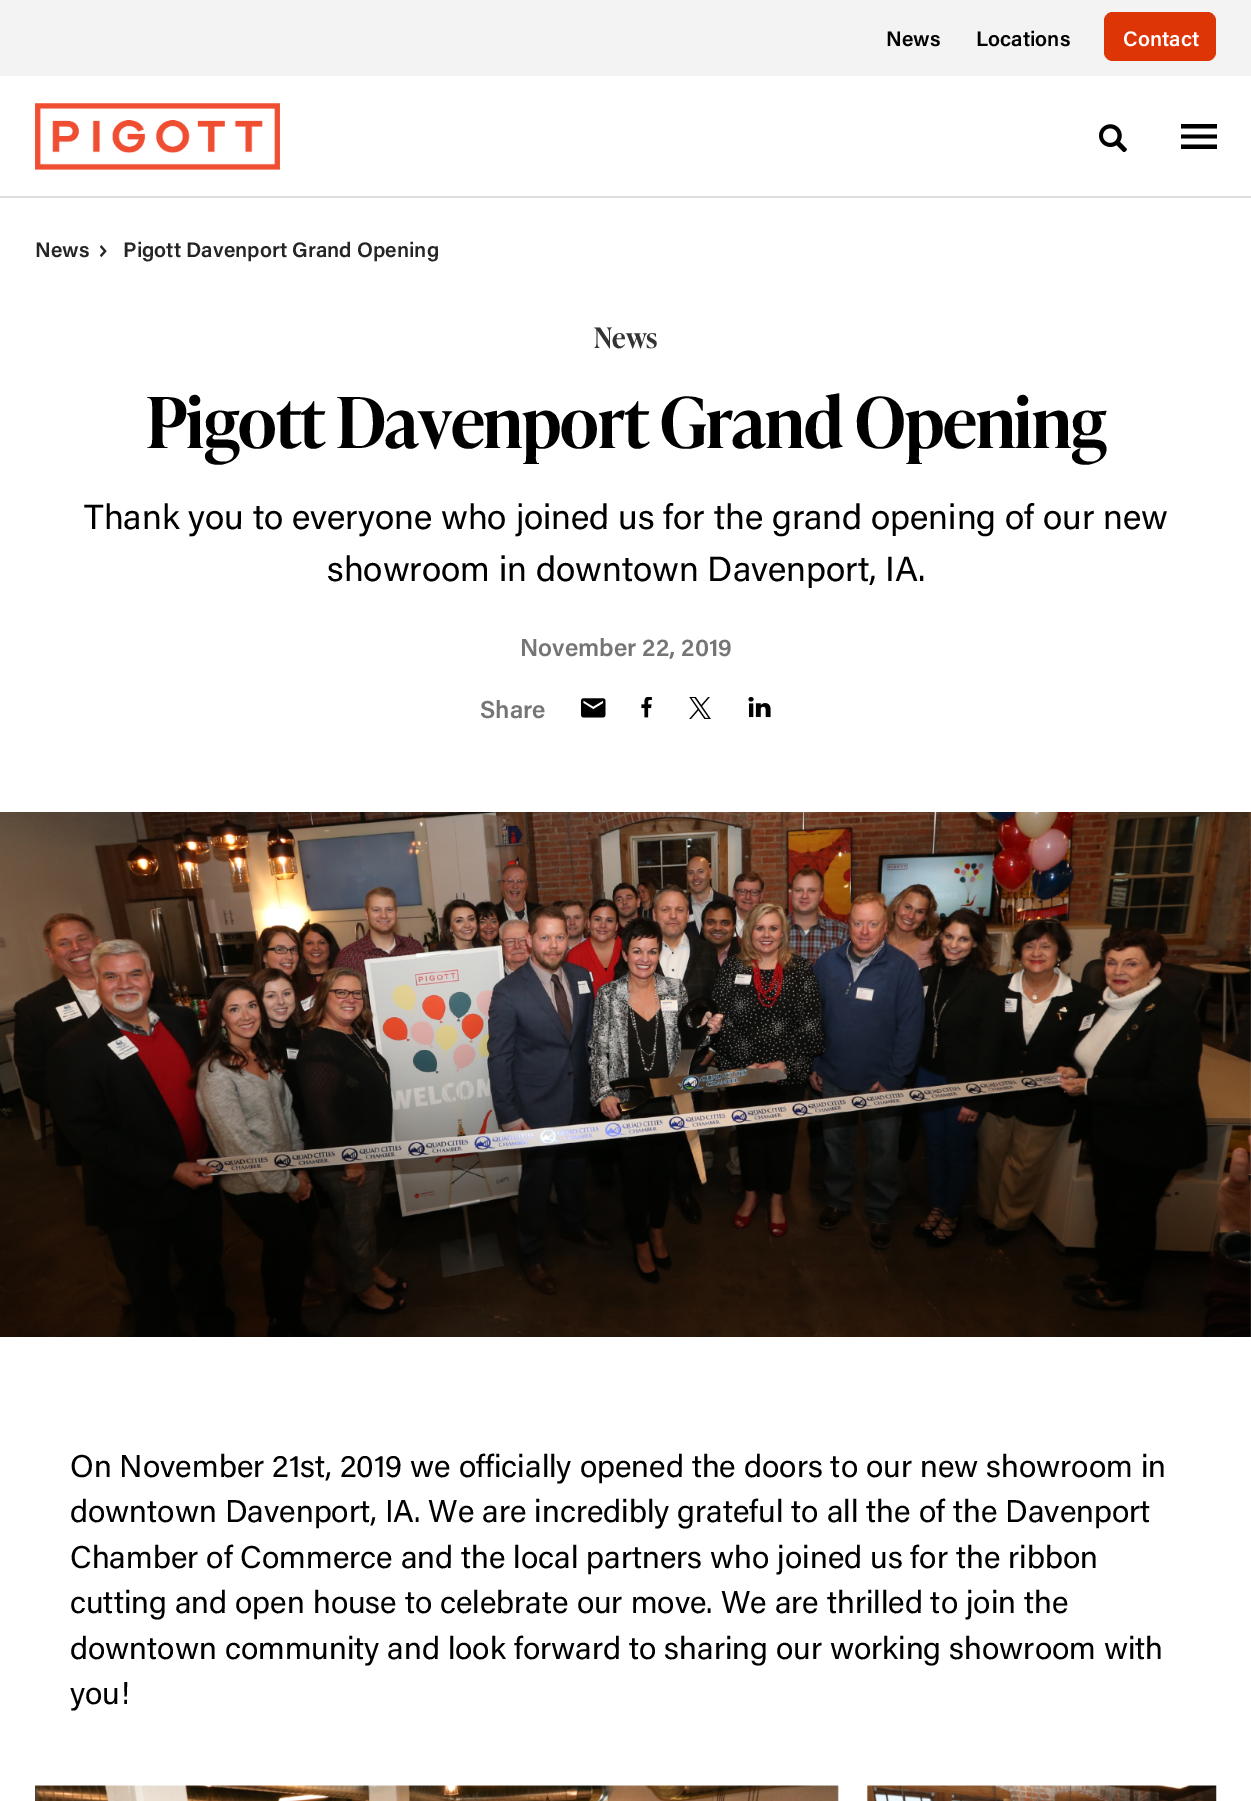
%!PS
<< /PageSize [1251 1801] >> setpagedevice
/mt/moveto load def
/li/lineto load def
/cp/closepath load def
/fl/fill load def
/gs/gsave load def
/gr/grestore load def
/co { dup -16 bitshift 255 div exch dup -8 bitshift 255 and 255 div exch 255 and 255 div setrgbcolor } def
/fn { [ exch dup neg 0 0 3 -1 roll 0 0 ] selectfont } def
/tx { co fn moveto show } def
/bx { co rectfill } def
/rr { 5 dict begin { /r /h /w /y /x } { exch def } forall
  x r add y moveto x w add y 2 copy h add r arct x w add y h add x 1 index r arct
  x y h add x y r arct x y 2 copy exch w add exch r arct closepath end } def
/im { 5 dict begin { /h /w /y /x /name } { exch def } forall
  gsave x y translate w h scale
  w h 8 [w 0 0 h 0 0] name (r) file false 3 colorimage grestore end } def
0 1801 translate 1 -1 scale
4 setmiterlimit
0 0 1251 1801 16#FFFFFF bx
0 0 1251 76 16#F3F3F3 bx
16#DD3506 co
1104 12 112 49 9 rr fl
0 196 1251 2 16#DCDEE0 bx
(media/1.raw) 35 103 245 67 im
(media/2.raw) 1099 124 28 28 im
gs
1181 124 37 25 rectclip
16#000000 co
1180.5 149 mt 1217 149 li 1217 144.5 li 1180.5 144.5 li cp 1180.5 138.5 mt 1217 138.5 li 1217 134.5 li 1180.5 134.5 li cp 1180.5 124 mt 1180.5 128.5 li 1217 128.5 li 1217 124 li cp eofill
gr
(media/3.raw) 100 245 7 12 im
(media/4.raw) 581 698 25 20 im
(media/5.raw) 641 697 11 21 im
(media/6.raw) 689 697 22 22 im
(media/7.raw) 748 697 23 21 im
(media/8.raw) 0 812 1251 525 im
(media/9.raw) 35 1785 1182 16 im
(News) 886 46 /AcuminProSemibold-SemiBold 21 16#000000 tx
(Locations) 976 46 /AcuminProSemibold-SemiBold 21 16#000000 tx
(Contact) 1123 46 /AcuminProSemibold-SemiBold 21 16#FFFFFF tx
(News) 35 257 /AcuminProSemibold-SemiBold 21 16#252525 tx
(Pigott Davenport Grand Opening) 123 257 /AcuminProSemibold-SemiBold 21 16#252525 tx
(News) 594 348 /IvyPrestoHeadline-SemiBold 28 16#333333 tx
/IvyPrestoHeadline-SemiBold 70 fn
16#000000 co
146 448 mt -.9 0 (Pigott Davenport Grand Opening) ashow
(Thank you to everyone who joined us for the grand opening of our new) 84 529 /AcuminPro-Regular 35 16#000000 tx
(showroom in downtown Davenport, IA.) 327 581 /AcuminPro-Regular 35 16#000000 tx
(November 22, 2019) 520 656 /AcuminProSemibold-SemiBold 24.5 16#757575 tx
(Share) 480 718 /AcuminProSemibold-SemiBold 24.5 16#757575 tx
(On November 21st, 2019 we officially opened the doors to our new showroom in) 70 1477 /AcuminPro-Regular 31.5 16#000000 tx
(downtown Davenport, IA. We are incredibly grateful to all the of the Davenport) 70 1522 /AcuminPro-Regular 31.5 16#000000 tx
(Chamber of Commerce and the local partners who joined us for the ribbon) 70 1568 /AcuminPro-Regular 31.5 16#000000 tx
(cutting and open house to celebrate our move. We are thrilled to join the) 70 1613 /AcuminPro-Regular 31.5 16#000000 tx
(downtown community and look forward to sharing our working showroom with) 70 1659 /AcuminPro-Regular 31.5 16#000000 tx
(you!) 70 1704 /AcuminPro-Regular 31.5 16#000000 tx
showpage
